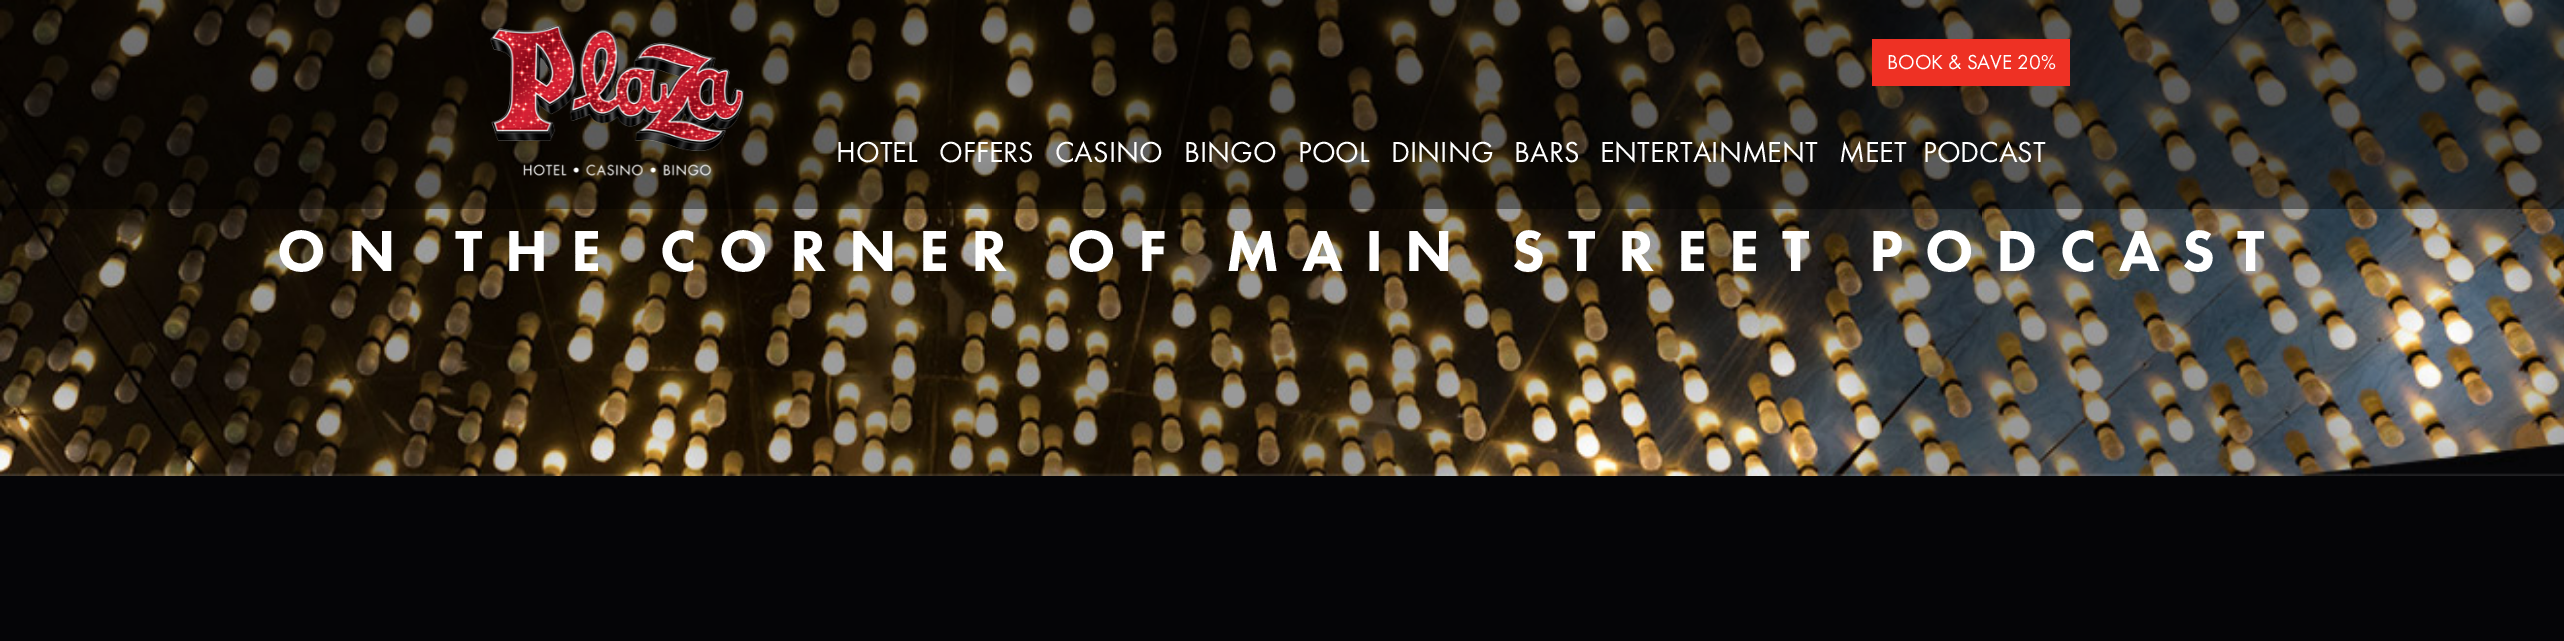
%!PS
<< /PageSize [2564 641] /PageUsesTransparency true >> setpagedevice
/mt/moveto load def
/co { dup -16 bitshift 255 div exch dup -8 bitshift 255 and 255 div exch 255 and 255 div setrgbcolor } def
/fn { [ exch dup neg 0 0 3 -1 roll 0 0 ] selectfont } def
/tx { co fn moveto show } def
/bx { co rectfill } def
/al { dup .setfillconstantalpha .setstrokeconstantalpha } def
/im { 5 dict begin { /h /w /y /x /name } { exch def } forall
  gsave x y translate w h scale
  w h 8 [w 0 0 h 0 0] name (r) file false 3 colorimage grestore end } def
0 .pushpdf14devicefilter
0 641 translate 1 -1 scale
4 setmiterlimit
0 0 2564 641 16#FFFFFF bx
(media/2.raw) 0 0 2564 476 im
0.4 al
0 0 2564 209 16#000000 bx
1 al
(media/1.raw) 490 25 254 151 im
1872 39 198 47 16#EE3124 bx
0 476 2564 165 16#050507 bx
(BOOK & SAVE 20%) 1887 69 /FuturaPT-Regular 21 16#FFFFFF tx
(HOTEL) 836 162 /FuturaPT-Regular 30 16#FFFFFF tx
(OFFERS) 939 162 /FuturaPT-Regular 30 16#FFFFFF tx
(CASINO) 1055 162 /FuturaPT-Regular 30 16#FFFFFF tx
(BINGO) 1184 162 /FuturaPT-Regular 30 16#FFFFFF tx
(POOL) 1298 162 /FuturaPT-Regular 30 16#FFFFFF tx
(DINING) 1391 162 /FuturaPT-Regular 30 16#FFFFFF tx
(BARS) 1514 162 /FuturaPT-Regular 30 16#FFFFFF tx
(ENTERTAINMENT) 1600 162 /FuturaPT-Regular 30 16#FFFFFF tx
(MEET) 1839 162 /FuturaPT-Regular 30 16#FFFFFF tx
(PODCAST) 1923 162 /FuturaPT-Regular 30 16#FFFFFF tx
/FuturaPT-Black 60 fn
277 271 mt 22.5 0 (ON THE CORNER OF MAIN STREET PODCAST) ashow
.poppdf14devicefilter showpage
